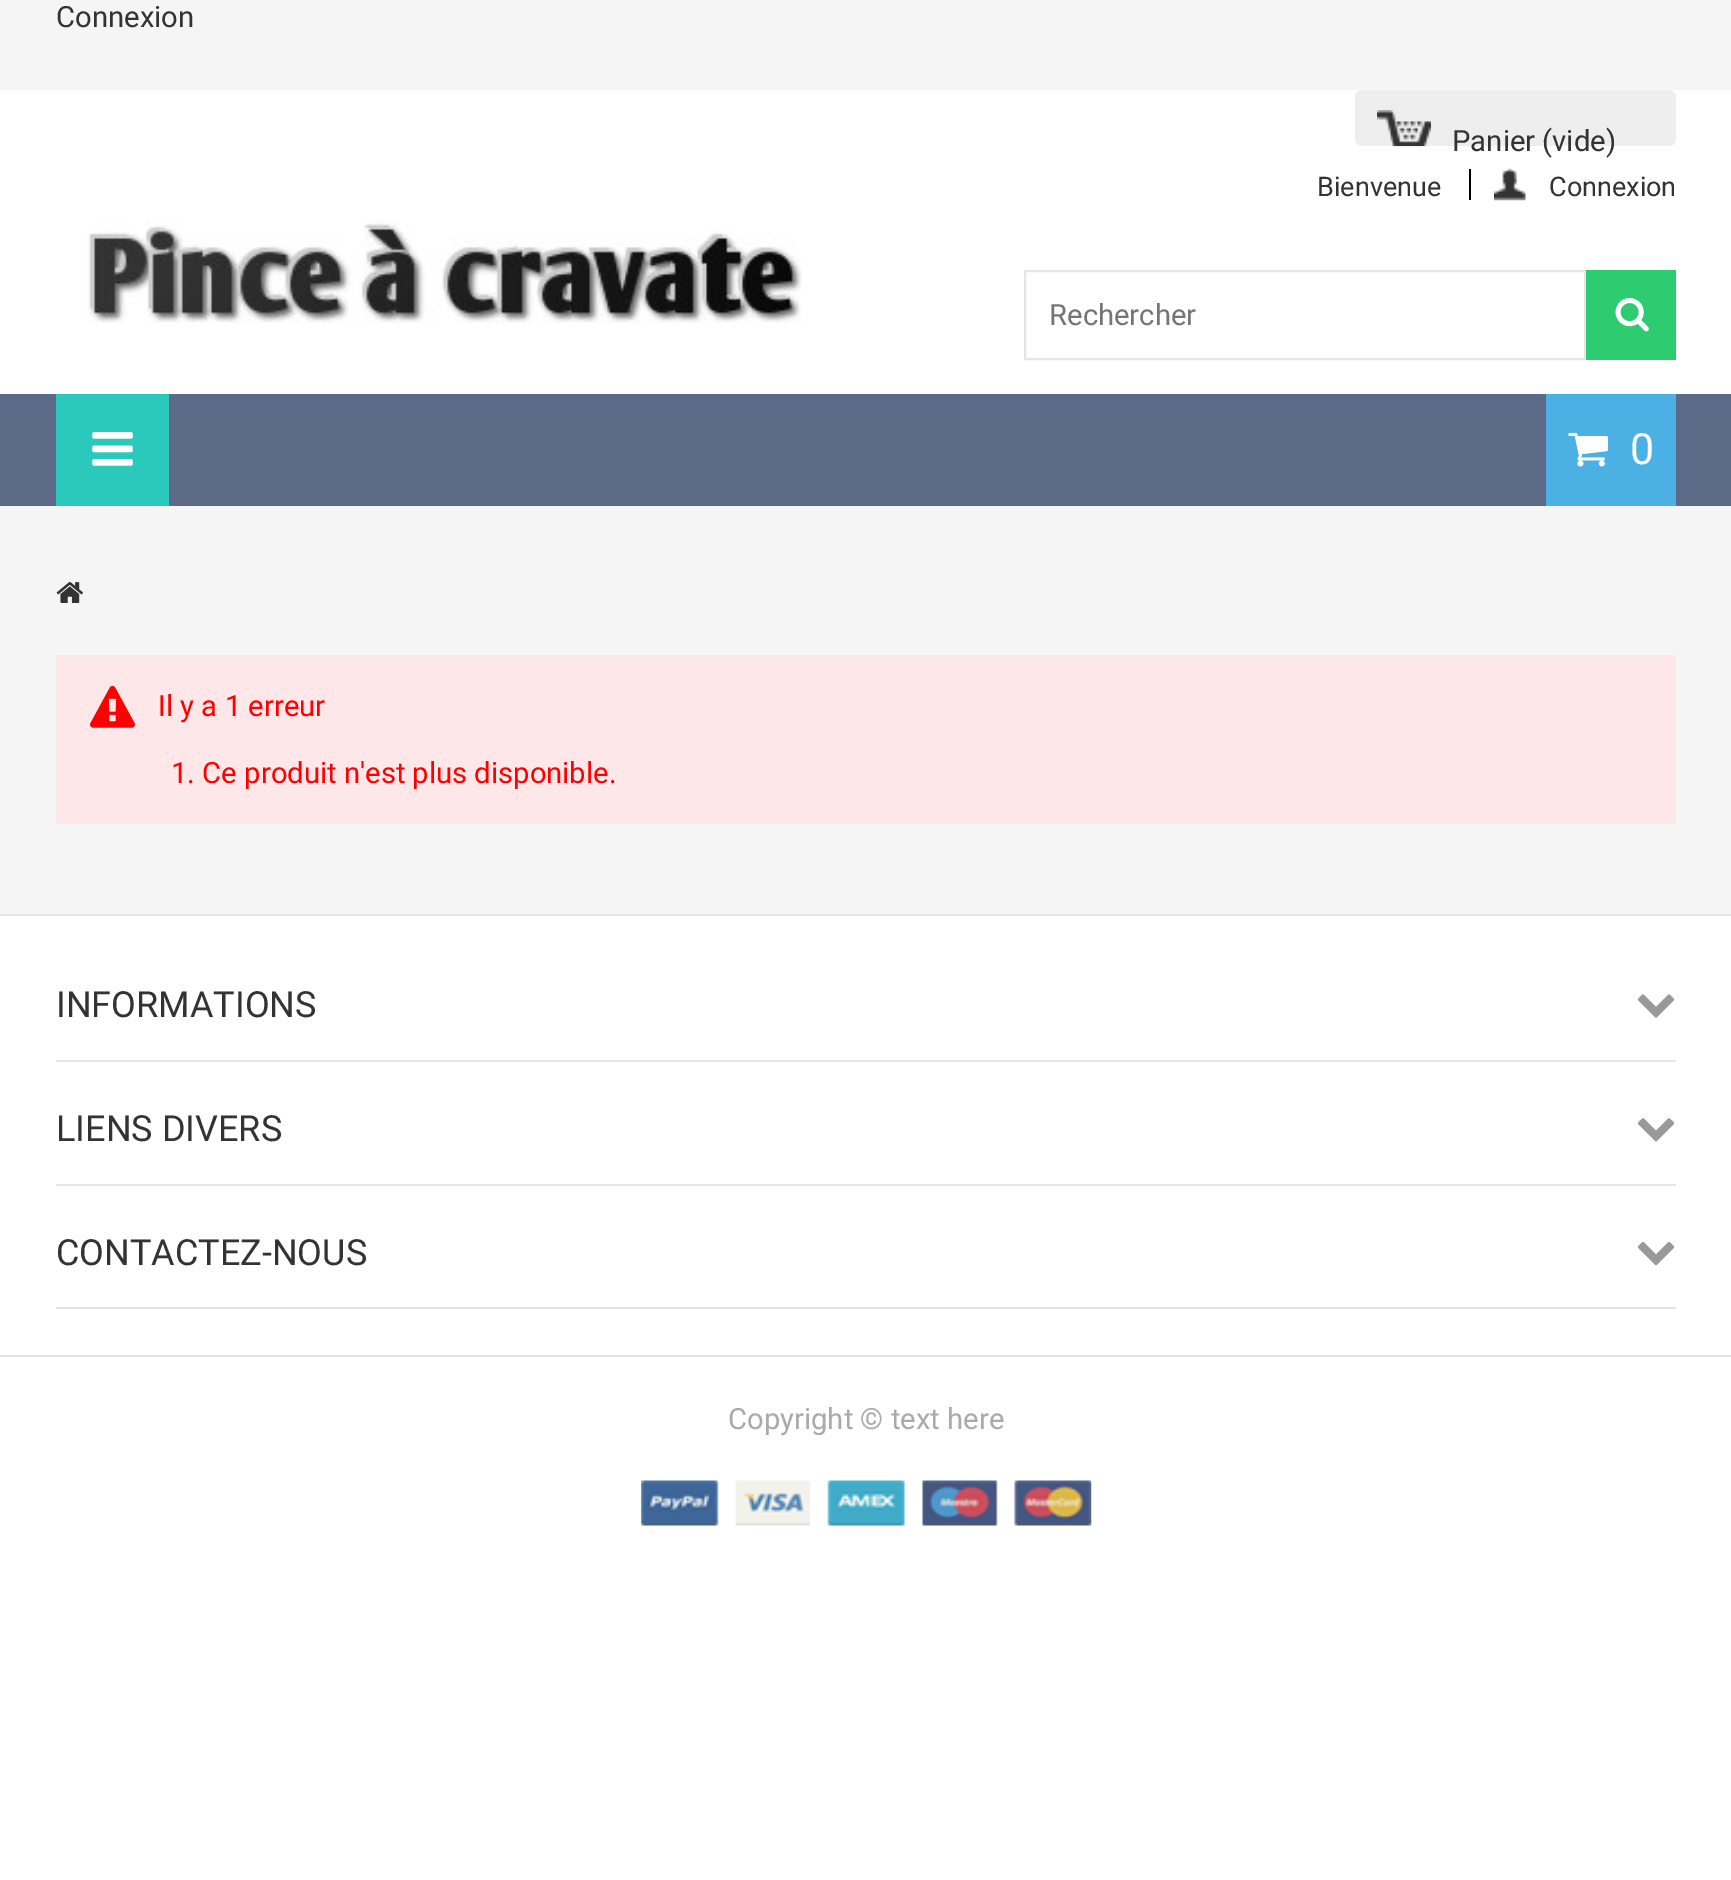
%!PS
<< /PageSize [1731 1880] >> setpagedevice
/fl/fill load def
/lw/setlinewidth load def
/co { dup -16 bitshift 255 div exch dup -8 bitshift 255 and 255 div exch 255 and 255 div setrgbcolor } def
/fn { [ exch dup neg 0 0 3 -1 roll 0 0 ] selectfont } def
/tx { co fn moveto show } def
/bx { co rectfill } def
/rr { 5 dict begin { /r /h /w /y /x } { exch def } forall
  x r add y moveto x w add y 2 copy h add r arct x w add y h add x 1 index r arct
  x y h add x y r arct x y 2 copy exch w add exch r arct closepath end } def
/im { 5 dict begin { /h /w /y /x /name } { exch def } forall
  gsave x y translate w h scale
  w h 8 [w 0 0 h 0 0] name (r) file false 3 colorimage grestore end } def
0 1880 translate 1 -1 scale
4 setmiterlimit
0 0 1731 1880 16#FFFFFF bx
0 0 1731 90 16#F5F5F5 bx
0 394 1731 112 16#5D6A87 bx
16#EEEEEE co
1355 90 321 56 7 rr fl
(media/1.raw) 1377 110 54 37 im
(media/2.raw) 1494 168 32 33 im
1469 169 2 31 16#000000 bx
(media/3.raw) 87 219 715 105 im
16#E5E5E5 co
2 lw
1025 271 560 88 rectstroke
1586 270 90 90 16#2ECC71 bx
(media/4.raw) 1615 298 34 34 im
56 394 113 112 16#2AC9BC bx
(media/5.raw) 92 432 41 34 im
1546 394 130 112 16#4BB0E3 bx
(media/6.raw) 1568 432 40 35 im
0 506 1731 408 16#F5F5F5 bx
(media/7.raw) 56 582 27 21 im
56 655 1620 169 16#FEE7E9 bx
(media/8.raw) 90 685 45 43 im
0 914 1731 2 16#E5E5E5 bx
56 1060 1620 2 16#E5E5E5 bx
(media/9.raw) 1637 994 38 24 im
56 1184 1620 2 16#E5E5E5 bx
(media/10.raw) 1637 1118 38 24 im
56 1307 1620 2 16#E5E5E5 bx
(media/11.raw) 1637 1241 38 25 im
0 1355 1731 2 16#E5E5E5 bx
(media/12.raw) 641 1480 451 46 im
(Connexion) 56 27 /Roboto-Regular 29.25 16#333333 tx
(Panier \(vide\)) 1452 151 /Roboto-Regular 29.25 16#333333 tx
(Bienvenue) 1317 196 /Roboto-Regular 27 16#333333 tx
(Connexion) 1549 196 /Roboto-Regular 27 16#333333 tx
(Rechercher) 1049 325 /Roboto-Regular 29.25 16#757575 tx
(0) 1630 464 /Roboto-Regular 43 16#FFFFFF tx
(Il y a 1 erreur) 158 716 /Roboto-Regular 29.25 16#FF0000 tx
(1. Ce produit n'est plus disponible.) 171 783 /Roboto-Regular 29.25 16#FF0000 tx
(INFORMATIONS) 56 1017 /Roboto-Regular 36 16#333333 tx
(LIENS DIVERS) 56 1141 /Roboto-Regular 36 16#333333 tx
(CONTACTEZ-NOUS) 56 1265 /Roboto-Regular 36 16#333333 tx
(Copyright © text here) 728 1429 /Roboto-Regular 29.25 16#AAAAAA tx
showpage
